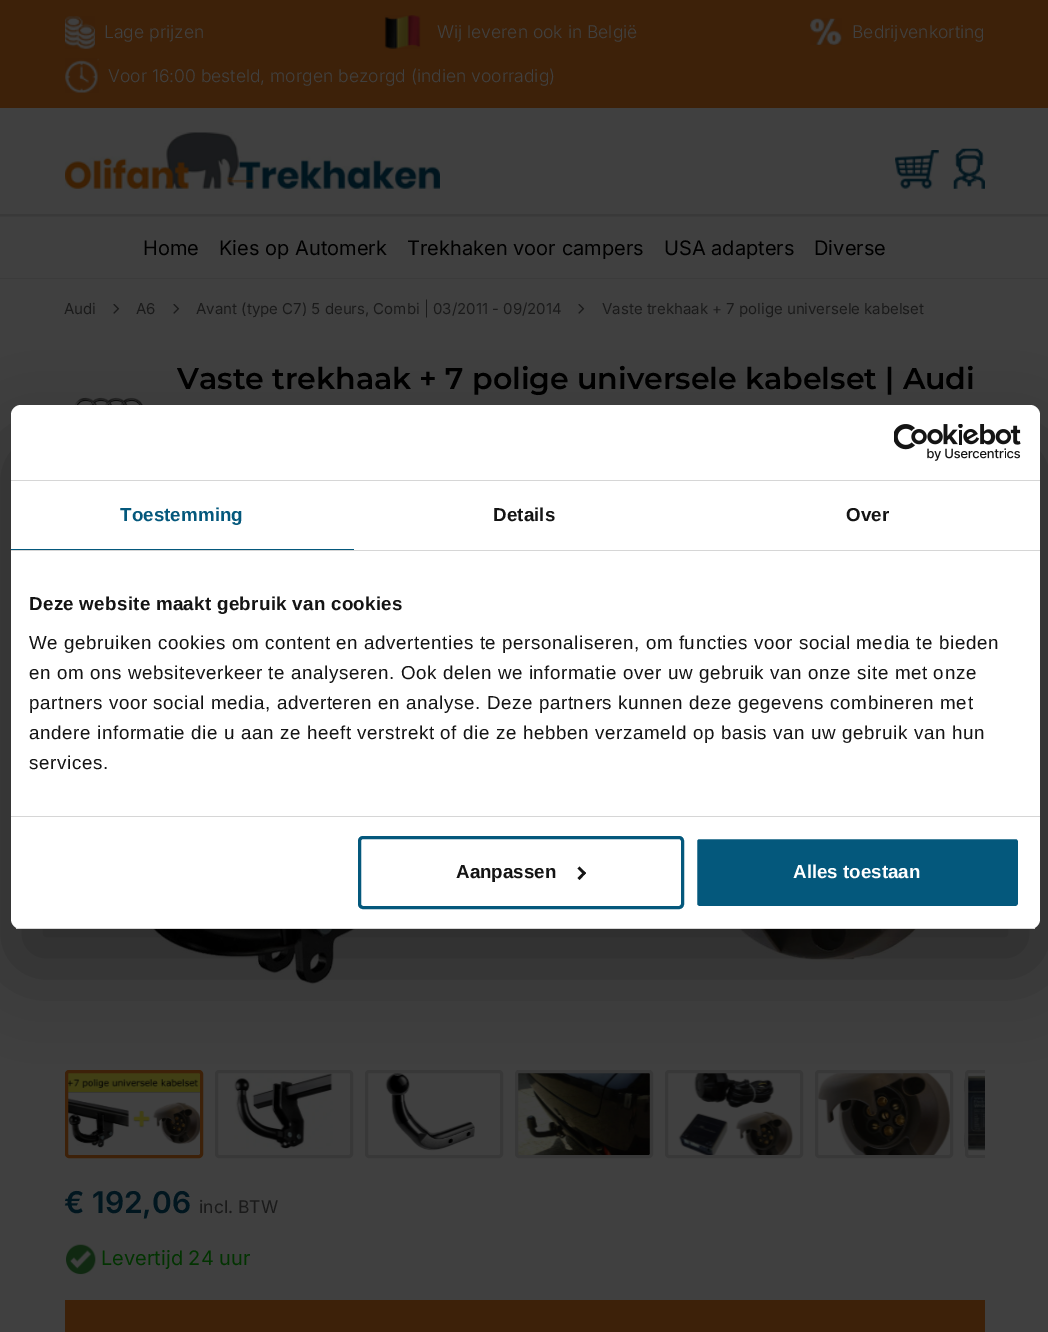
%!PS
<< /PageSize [1048 1332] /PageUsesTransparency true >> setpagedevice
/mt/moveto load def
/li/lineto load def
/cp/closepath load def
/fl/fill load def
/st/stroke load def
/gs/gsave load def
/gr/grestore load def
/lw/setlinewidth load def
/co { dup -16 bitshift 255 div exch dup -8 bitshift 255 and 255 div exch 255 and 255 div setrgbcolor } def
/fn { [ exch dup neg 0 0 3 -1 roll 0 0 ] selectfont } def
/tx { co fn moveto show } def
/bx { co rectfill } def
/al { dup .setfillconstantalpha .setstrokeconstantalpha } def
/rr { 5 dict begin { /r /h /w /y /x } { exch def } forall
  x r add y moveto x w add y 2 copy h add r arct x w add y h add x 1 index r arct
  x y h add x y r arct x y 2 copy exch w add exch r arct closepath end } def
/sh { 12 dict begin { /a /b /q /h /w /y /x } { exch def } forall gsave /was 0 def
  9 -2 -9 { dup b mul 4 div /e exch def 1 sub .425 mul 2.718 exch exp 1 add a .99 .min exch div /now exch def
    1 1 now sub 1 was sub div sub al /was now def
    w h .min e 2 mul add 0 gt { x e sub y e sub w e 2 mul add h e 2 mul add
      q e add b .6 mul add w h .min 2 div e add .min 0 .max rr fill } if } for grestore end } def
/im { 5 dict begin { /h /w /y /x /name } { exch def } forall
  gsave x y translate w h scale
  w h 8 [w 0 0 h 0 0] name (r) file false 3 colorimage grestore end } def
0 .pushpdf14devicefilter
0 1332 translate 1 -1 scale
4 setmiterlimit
0 0 1048 1332 16#404040 bx
0 278 1048 1 16#3B3B3B bx
0 0 1048 108 16#3D2109 bx
(media/1.raw) 65 16 30 33 im
(media/2.raw) 384 15 37 34 im
(media/3.raw) 810 18 32 27 im
(media/4.raw) 65 58 34 35 im
0 214 1048 2 16#393939 bx
(media/5.raw) 65 132 375 57 im
(media/6.raw) 895 150 44 39 im
(media/7.raw) 953 148 32 41 im
0 216 1048 1 16#3C3C3C bx
(media/8.raw) 113 304 7 10 im
(media/8.raw) 173 304 7 10 im
(media/8.raw) 578 304 7 10 im
(media/9.raw) 73 397 72 8 im
(media/10.raw) 65 929 920 56 im
(media/11.raw) 65 1072 138 76 im
16#3D2109 co
3 lw
66.5 1071.5 135 85 2.5 rr st
(media/12.raw) 234 1073 99 76 im
16#383838 co
216.5 1071.5 135 85 2.5 rr st
(media/13.raw) 385 1073 90 78 im
366.5 1071.5 135 85 2.5 rr st
(media/14.raw) 516 1070 135 88 im
516.5 1071.5 135 85 2.5 rr st
(media/15.raw) 678 1073 116 82 im
666.5 1071.5 135 85 2.5 rr st
(media/16.raw) 817 1070 134 88 im
816.5 1071.5 135 85 2.5 rr st
(media/17.raw) 964 1075 21 76 im
gs
65 1070 920 88 rectclip
966.5 1071.5 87 85 2.5 rr st
gr
(media/18.raw) 66 1244 30 31 im
65 1300 920 32 16#3D2109 bx
16#000000 co
11 445 1029 524 10 42.5 .3 sh
16#FFFFFF co
11 405 1029 524 10 rr fl
11 480 1029 1 16#D6D6D6 bx
(media/19.raw) 894 424 127 37 im
11 550 1029 1 16#D6D6D6 bx
11 549 343 1 16#04587C bx
11 816 1029 1 16#D6D6D6 bx
gs
11 405 1029 524 10 rr clip newpath
11 928 1029 1 16#D6D6D6 bx
gr
16#04587C co
359.5 837.5 323 70 3.5 rr st
16#141414 co
579.5 866.5 mt 586 873 li 584 875 li 577.5 868.5 li cp fl
584 871.5 mt 586 873 li 579.5 880 li 577.5 878 li cp fl
16#04587C co
695.5 837.5 324 70 3.5 rr gs fl gr
16#FFFFFF co
st
(Lage prijzen) 104 38 /Inter-Light 17.5 16#404040 tx
(Wij leveren ook in België) 437 38 /Inter-Light 17.5 16#404040 tx
(Bedrijvenkorting) 852 38 /Inter-Light 17.5 16#404040 tx
(Voor 16:00 besteld, morgen bezorgd \(indien voorradig\)) 108 82 /Inter-Light 17.5 16#404040 tx
(Home) 143 255 /Inter-Regular 20 16#000000 tx
(Kies op Automerk) 219 255 /Inter-Regular 20 16#000000 tx
(Trekhaken voor campers) 407 255 /Inter-Regular 20 16#000000 tx
(USA adapters) 664 255 /Inter-Regular 20 16#000000 tx
(Diverse) 814 255 /Inter-Regular 20 16#000000 tx
(Audi) 64 314 /Inter-Regular 15 16#1A1A1A tx
(A6) 136 314 /Inter-Regular 15 16#1A1A1A tx
(Avant \(type C7\) 5 deurs, Combi | 03/2011 - 09/2014) 196 314 /Inter-Regular 15 16#1A1A1A tx
(Vaste trekhaak + 7 polige universele kabelset) 602 314 /Inter-Regular 15 16#1A1A1A tx
(Vaste trekhaak + 7 polige universele kabelset | Audi) 177 389 /Montserrat-SemiBold 30 16#000000 tx
(€ 192,06) 64 1213 /Inter-SemiBold 30 16#01161F tx
(incl. BTW) 199 1213 /Inter-Regular 17.5 16#1A1A1A tx
(Levertijd 24 uur) 101 1265 /Inter-Regular 20 16#023301 tx
/LiberationSans-Bold 18.75 fn
16#04587C co
120 521 mt .1 0 (Toestemming) ashow
16#141414 co
493 521 mt .1 0 (Details) ashow
846 521 mt .1 0 (Over) ashow
29 610 mt .3 0 (Deze website maakt gebruik van cookies) ashow
/LiberationSans-Regular 18.75 fn
29 649 mt .62 0 (We gebruiken cookies om content en advertenties te personaliseren, om functies voor social media te bieden) ashow
29 679 mt .62 0 (en om ons websiteverkeer te analyseren. Ook delen we informatie over uw gebruik van onze site met onze) ashow
29 709 mt .62 0 (partners voor social media, adverteren en analyse. Deze partners kunnen deze gegevens combineren met) ashow
29 739 mt .62 0 (andere informatie die u aan ze heeft verstrekt of die ze hebben verzameld op basis van uw gebruik van hun) ashow
29 769 mt .62 0 (services.) ashow
(Aanpassen) 456 878 /LiberationSans-Bold 18.75 16#141414 tx
(Alles toestaan) 793 878 /LiberationSans-Bold 18.75 16#FFFFFF tx
.poppdf14devicefilter showpage
